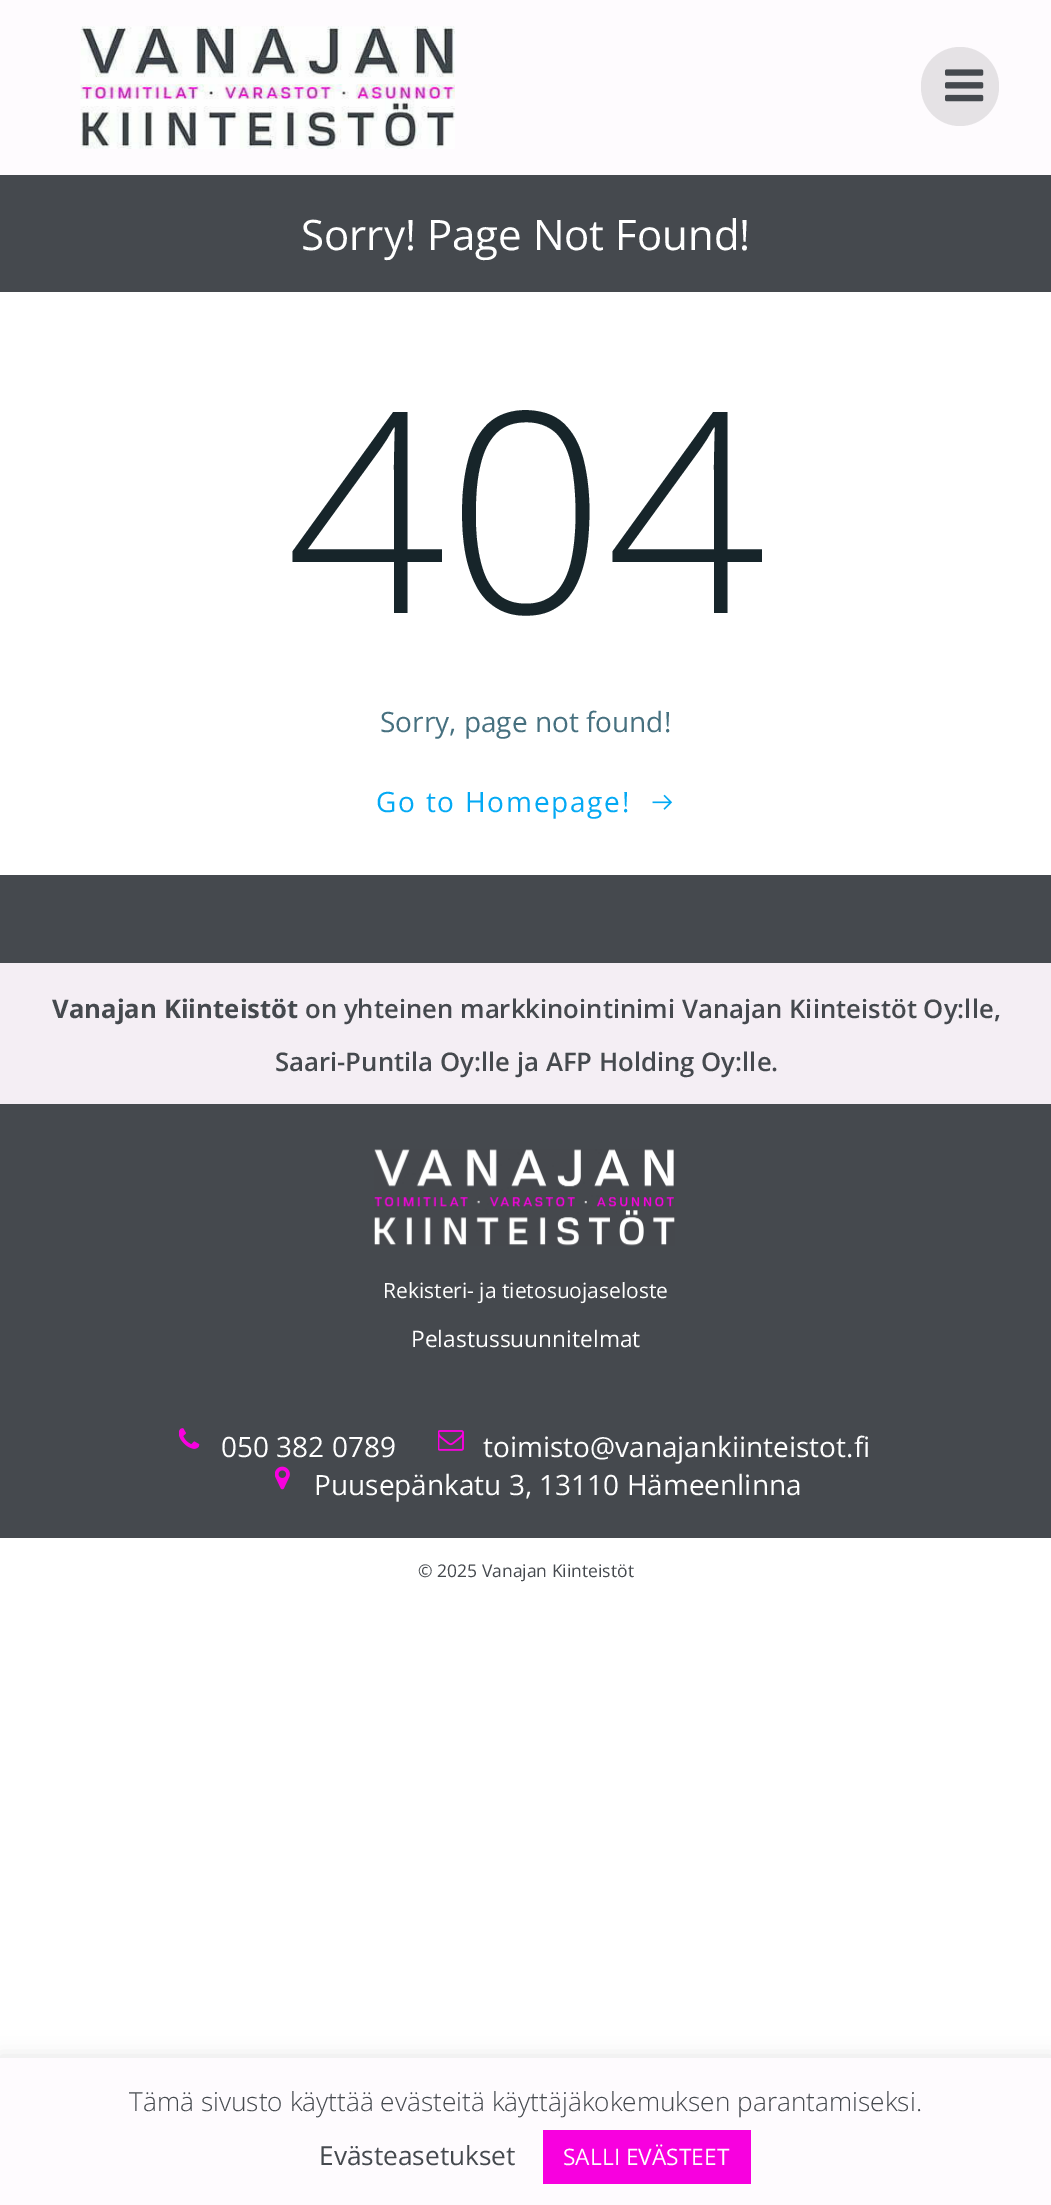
%!PS
<< /PageSize [1051 2205] /PageUsesTransparency true >> setpagedevice
/mt/moveto load def
/fl/fill load def
/co { dup -16 bitshift 255 div exch dup -8 bitshift 255 and 255 div exch 255 and 255 div setrgbcolor } def
/fn { [ exch dup neg 0 0 3 -1 roll 0 0 ] selectfont } def
/tx { co fn moveto show } def
/bx { co rectfill } def
/al { dup .setfillconstantalpha .setstrokeconstantalpha } def
/rr { 5 dict begin { /r /h /w /y /x } { exch def } forall
  x r add y moveto x w add y 2 copy h add r arct x w add y h add x 1 index r arct
  x y h add x y r arct x y 2 copy exch w add exch r arct closepath end } def
/sh { 12 dict begin { /a /b /q /h /w /y /x } { exch def } forall gsave /was 0 def
  9 -2 -9 { dup b mul 4 div /e exch def 1 sub .425 mul 2.718 exch exp 1 add a .99 .min exch div /now exch def
    1 1 now sub 1 was sub div sub al /was now def
    w h .min e 2 mul add 0 gt { x e sub y e sub w e 2 mul add h e 2 mul add
      q e add b .6 mul add w h .min 2 div e add .min 0 .max rr fill } if } for grestore end } def
/im { 5 dict begin { /h /w /y /x /name } { exch def } forall
  gsave x y translate w h scale
  w h 8 [w 0 0 h 0 0] name (r) file false 3 colorimage grestore end } def
0 .pushpdf14devicefilter
0 2205 translate 1 -1 scale
4 setmiterlimit
0 0 1051 2205 16#FFFFFF bx
0 0 1051 175 16#FEFBFE bx
(media/1.raw) 80 26 375 123 im
16#E5E2E5 co
921 47 78 79 39 rr fl
(media/2.raw) 945 69 39 33 im
0 175 1051 117 16#45494E bx
(media/3.raw) 652 794 21 16 im
0 875 1051 663 16#45494E bx
0 963 1051 141 16#F4EEF4 bx
(media/4.raw) 374 1149 301 97 im
(media/5.raw) 179 1428 21 21 im
(media/6.raw) 438 1430 26 21 im
(media/7.raw) 275 1466 15 24 im
16#ACABAB co
0 2056 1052 147 0 9 .3 sh
0 2058 1051 147 16#FEFBFE bx
543 2130 208 54 16#F800DF bx
(Sorry! Page Not Found!) 301 250 /OpenSans-Regular 42 16#FFFFFF tx
(404) 286 613 /OpenSans-Light 280 16#17252A tx
(Sorry, page not found!) 380 732 /OpenSans-Regular 28 16#46707F tx
16#03A9F4 co
376 812 mt 1.75 0 (Go to Homepage!) ashow
(Vanajan Kiinteistöt) 52 1018 /OpenSans-Bold 25.7 16#45494E tx
(on yhteinen markkinointinimi Vanajan Kiinteistöt Oy:lle,) 305 1018 /OpenSans-SemiBold 25.7 16#45494E tx
(Saari-Puntila Oy:lle ja AFP Holding Oy:lle.) 275 1071 /OpenSans-SemiBold 25.7 16#45494E tx
(Rekisteri- ja tietosuojaseloste) 383 1298 /OpenSans-Regular 21 16#FFFFFF tx
(Pelastussuunnitelmat) 411 1347 /OpenSans-Regular 22.75 16#FFFFFF tx
(050 382 0789) 221 1457 /OpenSans-Regular 28 16#FFFFFF tx
(toimisto@vanajankiinteistot.fi) 483 1457 /OpenSans-Regular 28 16#FFFFFF tx
(Puusepänkatu 3, 13110 Hämeenlinna) 314 1495 /OpenSans-Regular 28 16#FFFFFF tx
(© 2025 Vanajan Kiinteistöt) 418 1577 /OpenSans-Regular 17.5 16#45494E tx
(Tämä sivusto käyttää evästeitä käyttäjäkokemuksen parantamiseksi.) 129 2111 /OpenSans-Light 26.25 16#45494E tx
(Evästeasetukset) 319 2165 /OpenSans-Regular 26.25 16#45494E tx
(SALLI EVÄSTEET) 563 2165 /OpenSans-Regular 22.75 16#FFFFFF tx
.poppdf14devicefilter showpage
